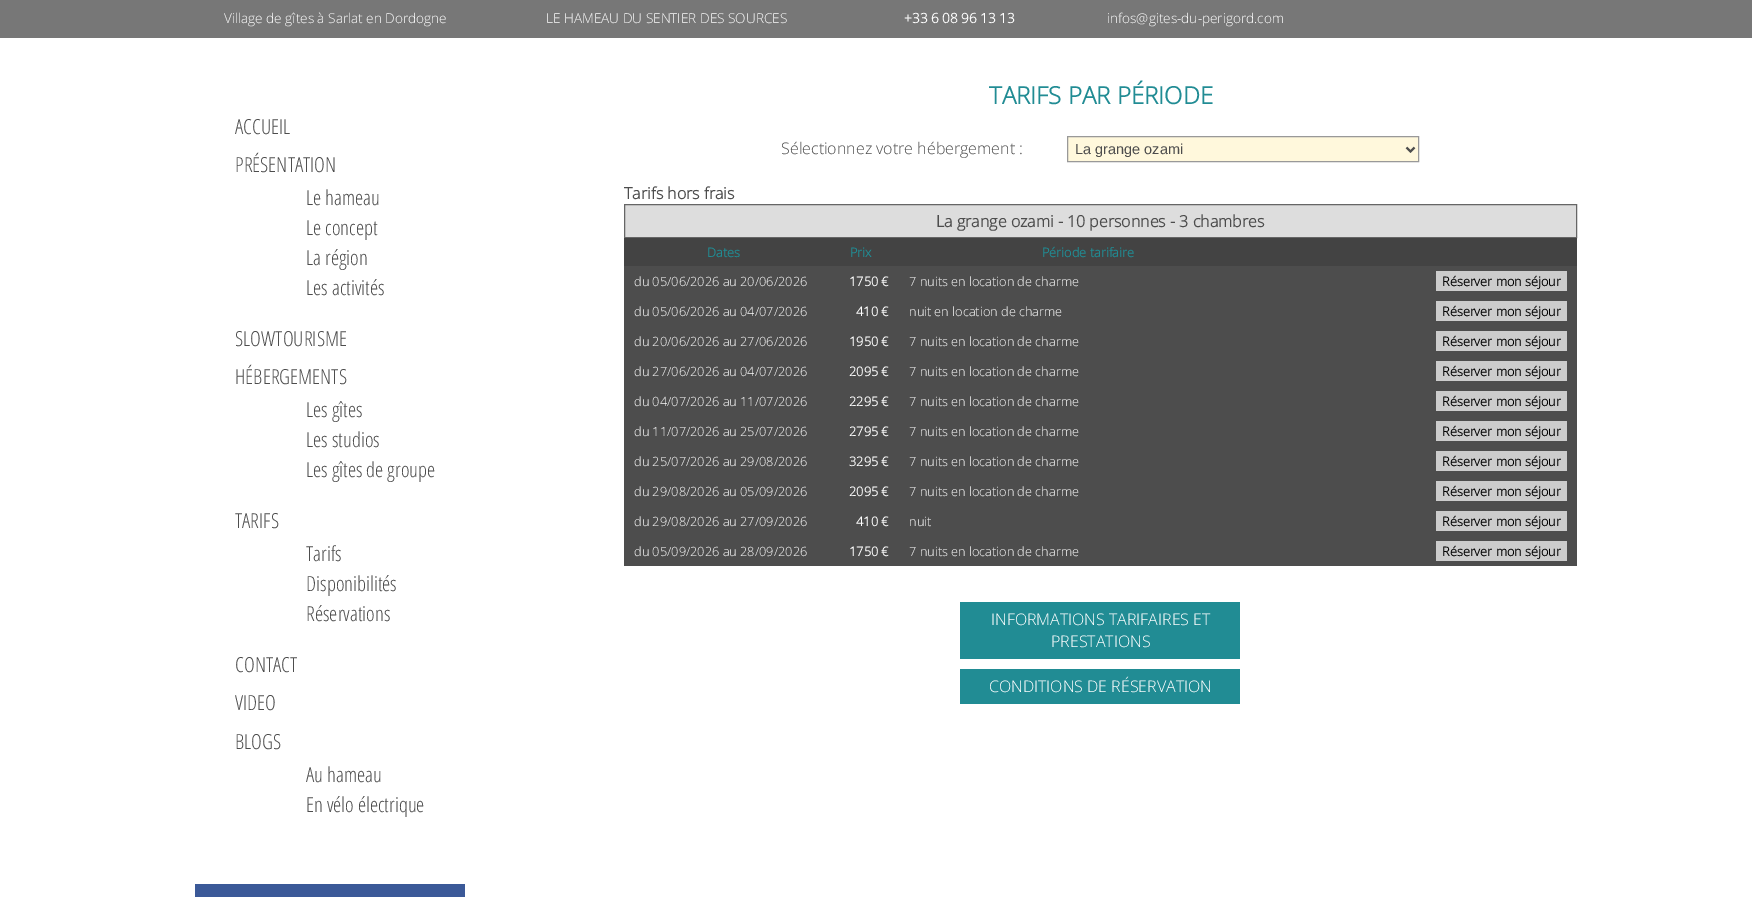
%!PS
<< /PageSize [1752 897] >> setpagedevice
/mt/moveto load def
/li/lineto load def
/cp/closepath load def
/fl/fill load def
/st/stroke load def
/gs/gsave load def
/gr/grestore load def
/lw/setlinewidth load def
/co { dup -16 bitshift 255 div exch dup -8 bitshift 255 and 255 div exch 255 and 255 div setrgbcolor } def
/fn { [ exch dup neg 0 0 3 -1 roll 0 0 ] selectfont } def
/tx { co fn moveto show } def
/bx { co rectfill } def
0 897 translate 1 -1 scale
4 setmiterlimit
0 0 1752 897 16#FFFFFF bx
0 0 1752 38 16#777777 bx
195 884 270 13 16#3B5998 bx
16#FFF8DC co
1067.5 136.5 mt 1418.5 136.5 li 1418.5 161.5 li 1067.5 161.5 li cp gs fl gr
16#999999 co
st
16#4D4D4D co
2 lw
1406.5 147.5 mt 1410.5 151.5 li 1414.5 147.5 li st
16#DDDDDD co
624.5 204.5 mt 1576.5 204.5 li 1576.5 237.5 li 624.5 237.5 li cp gs fl gr
16#666666 co
1 lw
st
624 266 953 300 16#4D4D4D bx
624 238 953 28 16#434343 bx
1436 271 131 20 16#CCCCCC bx
1436 301 131 20 16#CCCCCC bx
1436 331 131 20 16#CCCCCC bx
1436 361 131 20 16#CCCCCC bx
1436 391 131 20 16#CCCCCC bx
1436 421 131 20 16#CCCCCC bx
1436 451 131 20 16#CCCCCC bx
1436 481 131 20 16#CCCCCC bx
1436 511 131 20 16#CCCCCC bx
1436 541 131 20 16#CCCCCC bx
960 602 280 57 16#218C94 bx
960 669 280 35 16#218C94 bx
(Village de gîtes à Sarlat en Dordogne) 224 23 /OpenSans-Light 13.6 16#FFFFFF tx
(LE HAMEAU DU SENTIER DES SOURCES) 546 23 /OpenSans-Light 13.6 16#FFFFFF tx
(+33 6 08 96 13 13) 904 23 /OpenSans-Bold 13.6 16#FFFFFF tx
(infos@gites-du-perigord.com) 1107 23 /OpenSans-Light 13.6 16#FFFFFF tx
(ACCUEIL) 235 134 /OpenSansCondensed-Light 20.75 16#4D4D4D tx
(PRÉSENTATION) 235 172 /OpenSansCondensed-Light 20.75 16#4D4D4D tx
(Le hameau) 306 205 /OpenSansCondensed-Light 20.75 16#4D4D4D tx
(Le concept) 306 235 /OpenSansCondensed-Light 20.75 16#4D4D4D tx
(La région) 306 265 /OpenSansCondensed-Light 20.75 16#4D4D4D tx
(Les activités) 306 295 /OpenSansCondensed-Light 20.75 16#4D4D4D tx
(SLOWTOURISME) 235 346 /OpenSansCondensed-Light 20.75 16#4D4D4D tx
(HÉBERGEMENTS) 235 384 /OpenSansCondensed-Light 20.75 16#4D4D4D tx
(Les gîtes) 306 417 /OpenSansCondensed-Light 20.75 16#4D4D4D tx
(Les studios) 306 447 /OpenSansCondensed-Light 20.75 16#4D4D4D tx
(Les gîtes de groupe) 306 477 /OpenSansCondensed-Light 20.75 16#4D4D4D tx
(TARIFS) 235 528 /OpenSansCondensed-Light 20.75 16#4D4D4D tx
(Tarifs) 306 561 /OpenSansCondensed-Light 20.75 16#4D4D4D tx
(Disponibilités) 306 591 /OpenSansCondensed-Light 20.75 16#4D4D4D tx
(Réservations) 306 621 /OpenSansCondensed-Light 20.75 16#4D4D4D tx
(CONTACT) 235 672 /OpenSansCondensed-Light 20.75 16#4D4D4D tx
(VIDEO) 235 710 /OpenSansCondensed-Light 20.75 16#4D4D4D tx
(BLOGS) 235 749 /OpenSansCondensed-Light 20.75 16#4D4D4D tx
(Au hameau) 306 782 /OpenSansCondensed-Light 20.75 16#4D4D4D tx
(En vélo électrique) 306 812 /OpenSansCondensed-Light 20.75 16#4D4D4D tx
(TARIFS PAR PÉRIODE) 989 104 /OpenSans-Bold 24 16#218C94 tx
(Sélectionnez votre hébergement :) 781 154 /OpenSans-Light 16 16#4D4D4D tx
(La grange ozami) 1075 154 /LiberationSans-Regular 14.5 16#4D4D4D tx
(Tarifs hors frais) 624 199 /OpenSans-Bold 16 16#4D4D4D tx
(La grange ozami - 10 personnes - 3 chambres) 936 227 /OpenSans-Bold 16 16#4D4D4D tx
(Dates) 707 257 /OpenSans-Bold 12.75 16#218C94 tx
(Prix) 850 257 /OpenSans-Bold 12.75 16#218C94 tx
(Période tarifaire) 1042 257 /OpenSans-Bold 12.75 16#218C94 tx
(du 05/06/2026 au 20/06/2026) 634 286 /OpenSans-Light 12.75 16#FFFFFF tx
(1750 €) 849 286 /OpenSans-Bold 12.75 16#FFFFFF tx
(7 nuits en location de charme) 909 286 /OpenSans-Light 12.75 16#FFFFFF tx
(Réserver mon séjour) 1442 286 /OpenSans-Bold 12.75 16#000000 tx
(du 05/06/2026 au 04/07/2026) 634 316 /OpenSans-Light 12.75 16#FFFFFF tx
(410 €) 856 316 /OpenSans-Bold 12.75 16#FFFFFF tx
(nuit en location de charme) 909 316 /OpenSans-Light 12.75 16#FFFFFF tx
(Réserver mon séjour) 1442 316 /OpenSans-Bold 12.75 16#000000 tx
(du 20/06/2026 au 27/06/2026) 634 346 /OpenSans-Light 12.75 16#FFFFFF tx
(1950 €) 849 346 /OpenSans-Bold 12.75 16#FFFFFF tx
(7 nuits en location de charme) 909 346 /OpenSans-Light 12.75 16#FFFFFF tx
(Réserver mon séjour) 1442 346 /OpenSans-Bold 12.75 16#000000 tx
(du 27/06/2026 au 04/07/2026) 634 376 /OpenSans-Light 12.75 16#FFFFFF tx
(2095 €) 849 376 /OpenSans-Bold 12.75 16#FFFFFF tx
(7 nuits en location de charme) 909 376 /OpenSans-Light 12.75 16#FFFFFF tx
(Réserver mon séjour) 1442 376 /OpenSans-Bold 12.75 16#000000 tx
(du 04/07/2026 au 11/07/2026) 634 406 /OpenSans-Light 12.75 16#FFFFFF tx
(2295 €) 849 406 /OpenSans-Bold 12.75 16#FFFFFF tx
(7 nuits en location de charme) 909 406 /OpenSans-Light 12.75 16#FFFFFF tx
(Réserver mon séjour) 1442 406 /OpenSans-Bold 12.75 16#000000 tx
(du 11/07/2026 au 25/07/2026) 634 436 /OpenSans-Light 12.75 16#FFFFFF tx
(2795 €) 849 436 /OpenSans-Bold 12.75 16#FFFFFF tx
(7 nuits en location de charme) 909 436 /OpenSans-Light 12.75 16#FFFFFF tx
(Réserver mon séjour) 1442 436 /OpenSans-Bold 12.75 16#000000 tx
(du 25/07/2026 au 29/08/2026) 634 466 /OpenSans-Light 12.75 16#FFFFFF tx
(3295 €) 849 466 /OpenSans-Bold 12.75 16#FFFFFF tx
(7 nuits en location de charme) 909 466 /OpenSans-Light 12.75 16#FFFFFF tx
(Réserver mon séjour) 1442 466 /OpenSans-Bold 12.75 16#000000 tx
(du 29/08/2026 au 05/09/2026) 634 496 /OpenSans-Light 12.75 16#FFFFFF tx
(2095 €) 849 496 /OpenSans-Bold 12.75 16#FFFFFF tx
(7 nuits en location de charme) 909 496 /OpenSans-Light 12.75 16#FFFFFF tx
(Réserver mon séjour) 1442 496 /OpenSans-Bold 12.75 16#000000 tx
(du 29/08/2026 au 27/09/2026) 634 526 /OpenSans-Light 12.75 16#FFFFFF tx
(410 €) 856 526 /OpenSans-Bold 12.75 16#FFFFFF tx
(nuit) 909 526 /OpenSans-Light 12.75 16#FFFFFF tx
(Réserver mon séjour) 1442 526 /OpenSans-Bold 12.75 16#000000 tx
(du 05/09/2026 au 28/09/2026) 634 556 /OpenSans-Light 12.75 16#FFFFFF tx
(1750 €) 849 556 /OpenSans-Bold 12.75 16#FFFFFF tx
(7 nuits en location de charme) 909 556 /OpenSans-Light 12.75 16#FFFFFF tx
(Réserver mon séjour) 1442 556 /OpenSans-Bold 12.75 16#000000 tx
(INFORMATIONS TARIFAIRES ET) 991 625 /OpenSans-Light 16 16#FFFFFF tx
(PRESTATIONS) 1051 647 /OpenSans-Light 16 16#FFFFFF tx
(CONDITIONS DE RÉSERVATION) 989 692 /OpenSans-Light 16 16#FFFFFF tx
showpage
